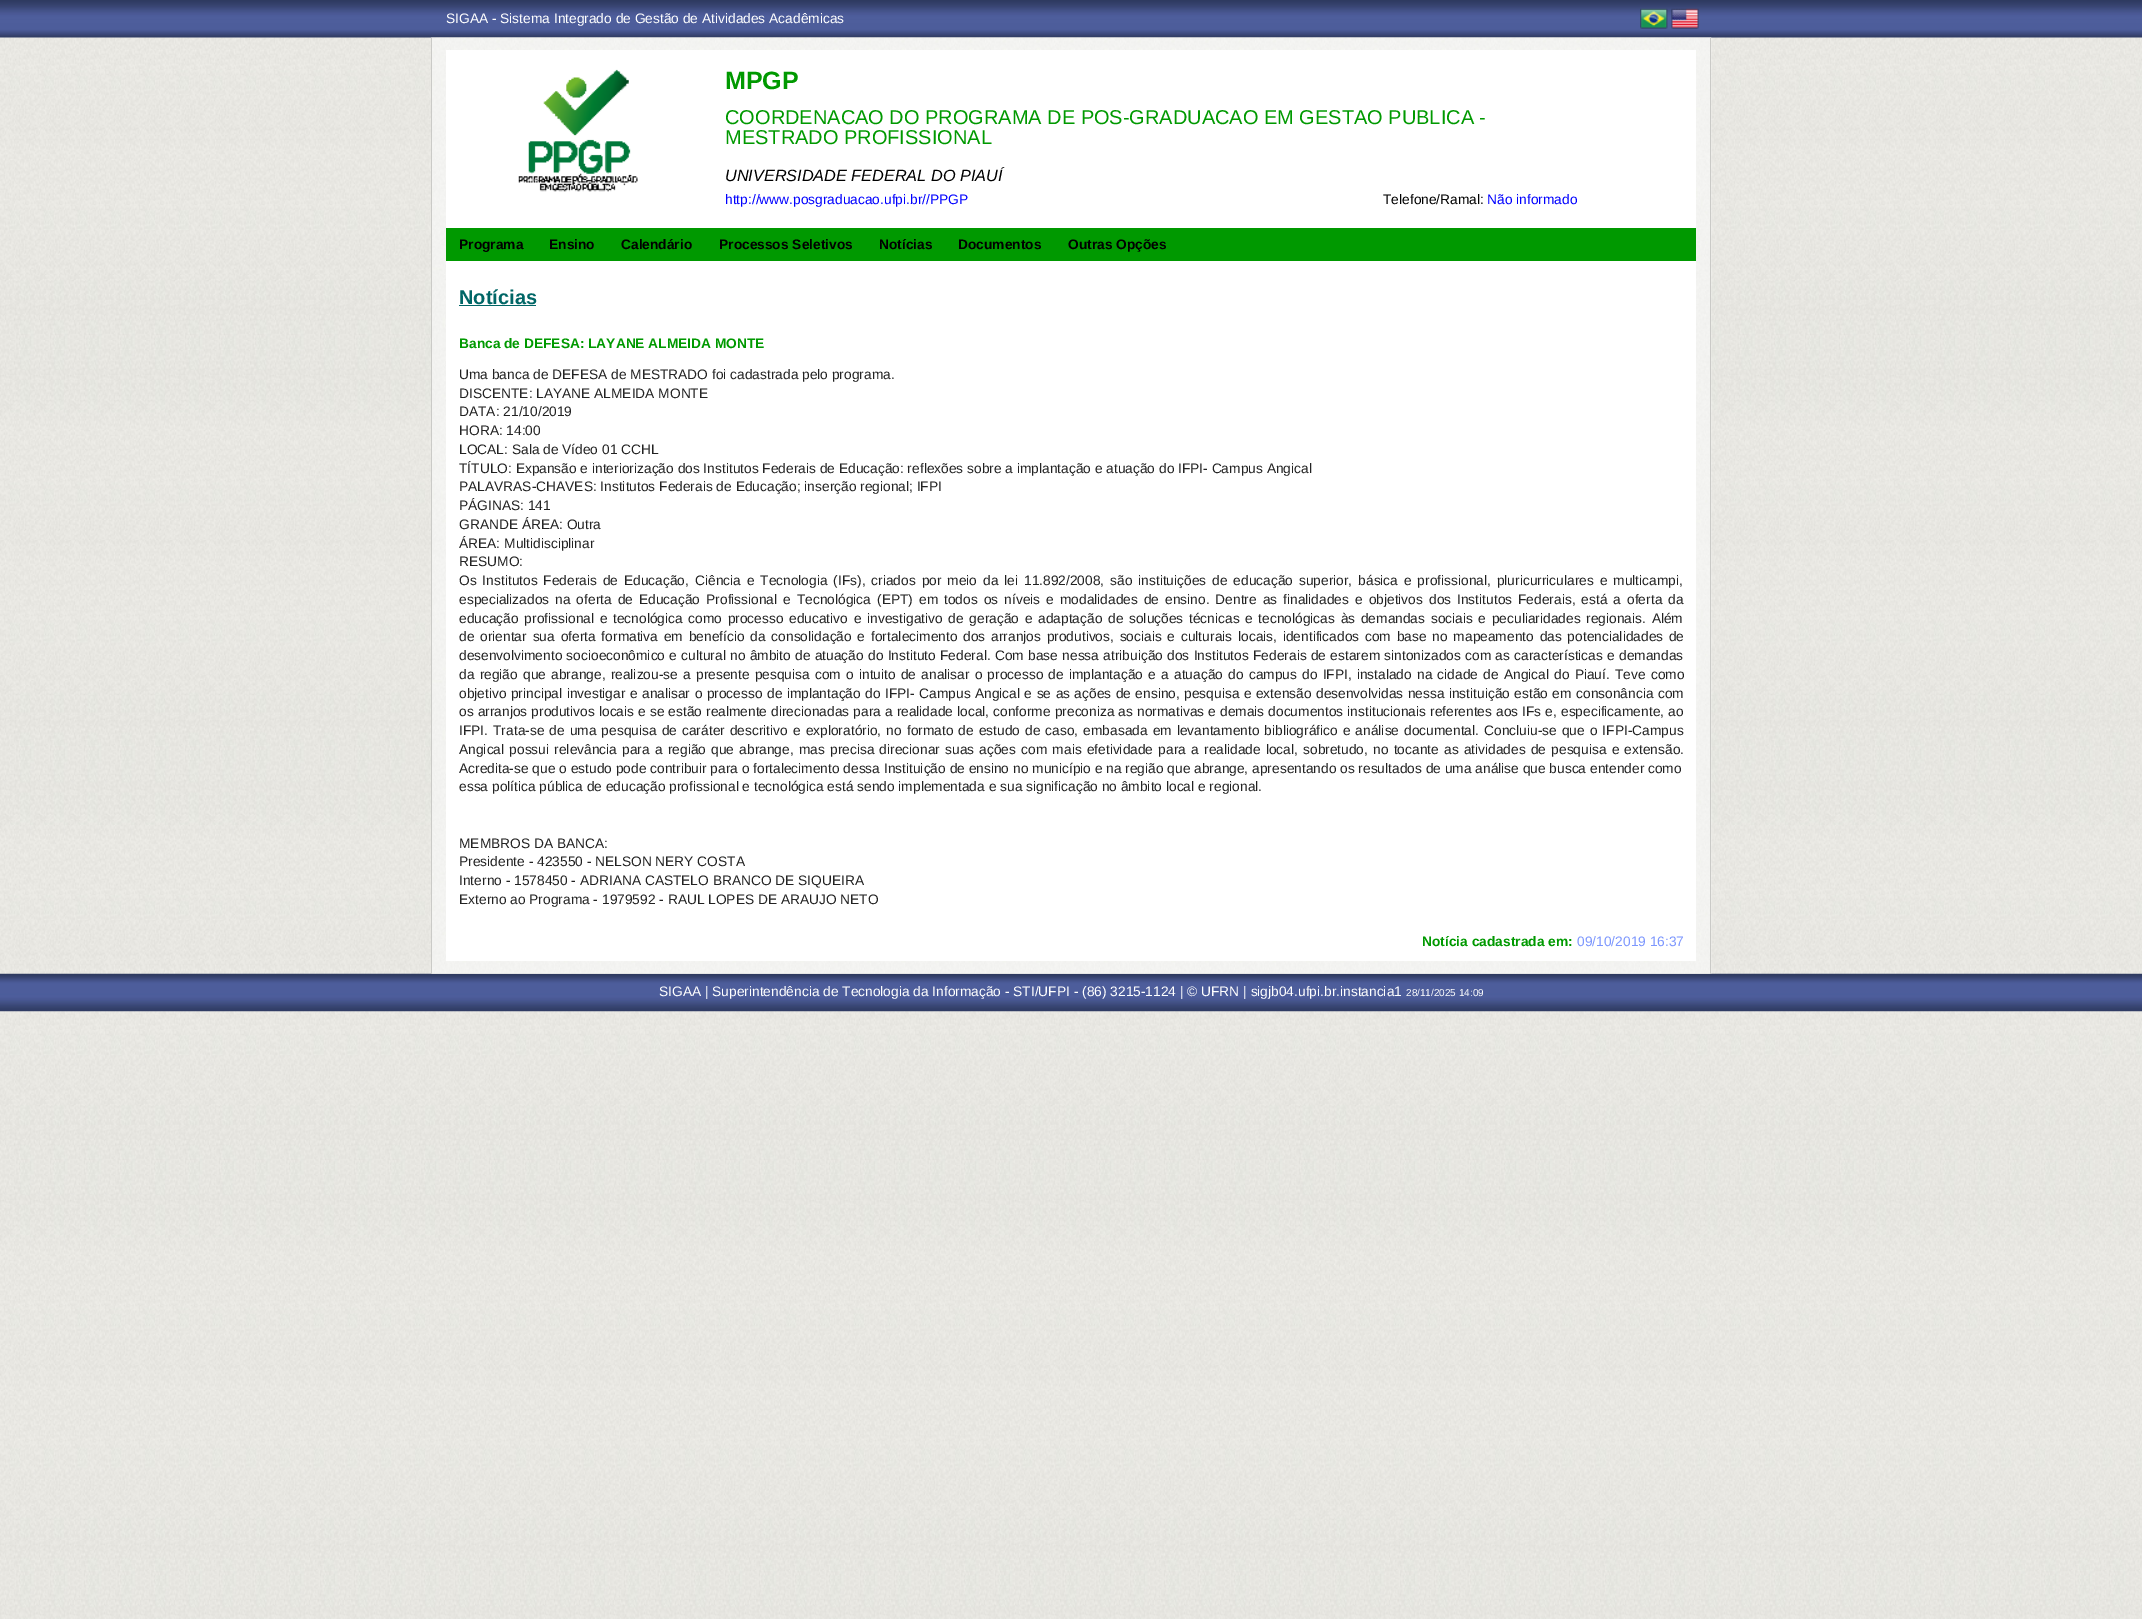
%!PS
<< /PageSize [2142 1619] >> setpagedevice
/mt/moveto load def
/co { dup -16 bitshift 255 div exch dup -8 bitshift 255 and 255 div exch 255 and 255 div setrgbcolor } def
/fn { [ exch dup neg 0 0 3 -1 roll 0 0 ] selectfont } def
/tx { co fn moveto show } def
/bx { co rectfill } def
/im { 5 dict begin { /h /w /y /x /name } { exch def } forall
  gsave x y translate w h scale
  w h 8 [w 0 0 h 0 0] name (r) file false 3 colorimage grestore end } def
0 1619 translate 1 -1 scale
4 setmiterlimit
0 0 2142 1619 16#FFFFFF bx
(media/1.raw) 0 37 2142 1582 im
(media/2.raw) 0 0 2142 38 im
(media/3.raw) 0 973 2142 39 im
(media/4.raw) 1640 8 28 21 im
(media/5.raw) 1671 8 28 21 im
(media/6.raw) 431 37 1281 937 im
1710 38 1 936 16#CACAC7 bx
431 38 1 936 16#CACAC7 bx
446 50 1250 911 16#FFFFFF bx
(media/7.raw) 518 69 120 123 im
446 228 1250 33 16#009900 bx
459 305 77 1 16#006666 bx
(SIGAA - Sistema Integrado de Gestão de Atividades Acadêmicas) 446 23 /LiberationSans-Regular 13.75 16#FFFFFF tx
(MPGP) 725 89 /LiberationSans-Bold 25 16#009900 tx
(COORDENACAO DO PROGRAMA DE POS-GRADUACAO EM GESTAO PUBLICA -) 725 124 /LiberationSans-Regular 20 16#009900 tx
(MESTRADO PROFISSIONAL) 725 144 /LiberationSans-Regular 20 16#009900 tx
(UNIVERSIDADE FEDERAL DO PIAUÍ) 725 181 /LiberationSans-Italic 16.25 16#000000 tx
(http://www.posgraduacao.ufpi.br//PPGP) 725 204 /LiberationSans-Regular 13.75 16#0000FF tx
(Telefone/Ramal:) 1383 204 /LiberationSans-Regular 13.75 16#000000 tx
(Não informado) 1487 204 /LiberationSans-Regular 13.75 16#0000FF tx
(Programa) 459 249 /LiberationSans-Bold 13.75 16#000000 tx
(Ensino) 549 249 /LiberationSans-Bold 13.75 16#000000 tx
(Calendário) 621 249 /LiberationSans-Bold 13.75 16#000000 tx
(Processos Seletivos) 719 249 /LiberationSans-Bold 13.75 16#000000 tx
(Notícias) 879 249 /LiberationSans-Bold 13.75 16#000000 tx
(Documentos) 958 249 /LiberationSans-Bold 13.75 16#000000 tx
(Outras Opções) 1068 249 /LiberationSans-Bold 13.75 16#000000 tx
(Notícias) 459 304 /LiberationSans-Bold 20 16#006666 tx
(Banca de DEFESA: LAYANE ALMEIDA MONTE) 459 348 /LiberationSans-Bold 13.75 16#009900 tx
(Uma banca de DEFESA de MESTRADO foi cadastrada pelo programa.) 459 379 /LiberationSans-Regular 13.75 16#222222 tx
(DISCENTE: LAYANE ALMEIDA MONTE) 459 398 /LiberationSans-Regular 13.75 16#222222 tx
(DATA: 21/10/2019) 459 416 /LiberationSans-Regular 13.75 16#222222 tx
(HORA: 14:00) 459 435 /LiberationSans-Regular 13.75 16#222222 tx
(LOCAL: Sala de Vídeo 01 CCHL) 459 454 /LiberationSans-Regular 13.75 16#222222 tx
(TÍTULO: Expansão e interiorização dos Institutos Federais de Educação: reflexões sobre a implantação e atuação do IFPI- Campus Angical) 459 473 /LiberationSans-Regular 13.75 16#222222 tx
(PALAVRAS-CHAVES: Institutos Federais de Educação; inserção regional; IFPI) 459 491 /LiberationSans-Regular 13.75 16#222222 tx
(PÁGINAS: 141) 459 510 /LiberationSans-Regular 13.75 16#222222 tx
(GRANDE ÁREA: Outra) 459 529 /LiberationSans-Regular 13.75 16#222222 tx
(ÁREA: Multidisciplinar) 459 548 /LiberationSans-Regular 13.75 16#222222 tx
(RESUMO:) 459 566 /LiberationSans-Regular 13.75 16#222222 tx
459 585 mt 2.1 0 32 (Os Institutos Federais de Educação, Ciência e Tecnologia \(IFs\), criados por meio da lei 11.892/2008, são instituições de educação superior, básica e profissional, pluricurriculares e multicampi,) widthshow
459 604 mt 2.2 0 32 (especializados na oferta de Educação Profissional e Tecnológica \(EPT\) em todos os níveis e modalidades de ensino. Dentre as finalidades e objetivos dos Institutos Federais, está a oferta da) widthshow
459 623 mt 1.9 0 32 (educação profissional e tecnológica como processo educativo e investigativo de geração e adaptação de soluções técnicas e tecnológicas às demandas sociais e peculiaridades regionais. Além) widthshow
459 641 mt 2 0 32 (de orientar sua oferta formativa em benefício da consolidação e fortalecimento dos arranjos produtivos, sociais e culturais locais, identificados com base no mapeamento das potencialidades de) widthshow
459 660 mt .5 0 32 (desenvolvimento socioeconômico e cultural no âmbito de atuação do Instituto Federal. Com base nessa atribuição dos Institutos Federais de estarem sintonizados com as características e demandas) widthshow
459 679 mt 1.4 0 32 (da região que abrange, realizou-se a presente pesquisa com o intuito de analisar o processo de implantação e a atuação do campus do IFPI, instalado na cidade de Angical do Piauí. Teve como) widthshow
459 698 mt .65 0 32 (objetivo principal investigar e analisar o processo de implantação do IFPI- Campus Angical e se as ações de ensino, pesquisa e extensão desenvolvidas nessa instituição estão em consonância com) widthshow
459 716 mt .25 0 32 (os arranjos produtivos locais e se estão realmente direcionadas para a realidade local, conforme preconiza as normativas e demais documentos institucionais referentes aos IFs e, especificamente, ao) widthshow
459 735 mt 1.25 0 32 (IFPI. Trata-se de uma pesquisa de caráter descritivo e exploratório, no formato de estudo de caso, embasada em levantamento bibliográfico e análise documental. Concluiu-se que o IFPI-Campus) widthshow
459 754 mt 1.4 0 32 (Angical possui relevância para a região que abrange, mas precisa direcionar suas ações com mais efetividade para a realidade local, sobretudo, no tocante as atividades de pesquisa e extensão.) widthshow
(Acredita-se que o estudo pode contribuir para o fortalecimento dessa Instituição de ensino no município e na região que abrange, apresentando os resultados de uma análise que busca entender como) 459 773 /LiberationSans-Regular 13.75 16#222222 tx
(essa política pública de educação profissional e tecnológica está sendo implementada e sua significação no âmbito local e regional.) 459 791 /LiberationSans-Regular 13.75 16#222222 tx
(MEMBROS DA BANCA:) 459 848 /LiberationSans-Regular 13.75 16#222222 tx
(Presidente - 423550 - NELSON NERY COSTA) 459 866 /LiberationSans-Regular 13.75 16#222222 tx
(Interno - 1578450 - ADRIANA CASTELO BRANCO DE SIQUEIRA) 459 885 /LiberationSans-Regular 13.75 16#222222 tx
(Externo ao Programa - 1979592 - RAUL LOPES DE ARAUJO NETO) 459 904 /LiberationSans-Regular 13.75 16#222222 tx
(Notícia cadastrada em:) 1422 946 /LiberationSans-Bold 13.75 16#009900 tx
(09/10/2019 16:37) 1577 946 /LiberationSans-Regular 13.75 16#7D97FE tx
(SIGAA | Superintendência de Tecnologia da Informação - STI/UFPI - \(86\) 3215-1124 | © UFRN | sigjb04.ufpi.br.instancia1) 659 996 /LiberationSans-Regular 13.75 16#FFFFFF tx
(28/11/2025 14:09) 1406 996 /LiberationSans-Regular 10 16#FFFFFF tx
showpage
